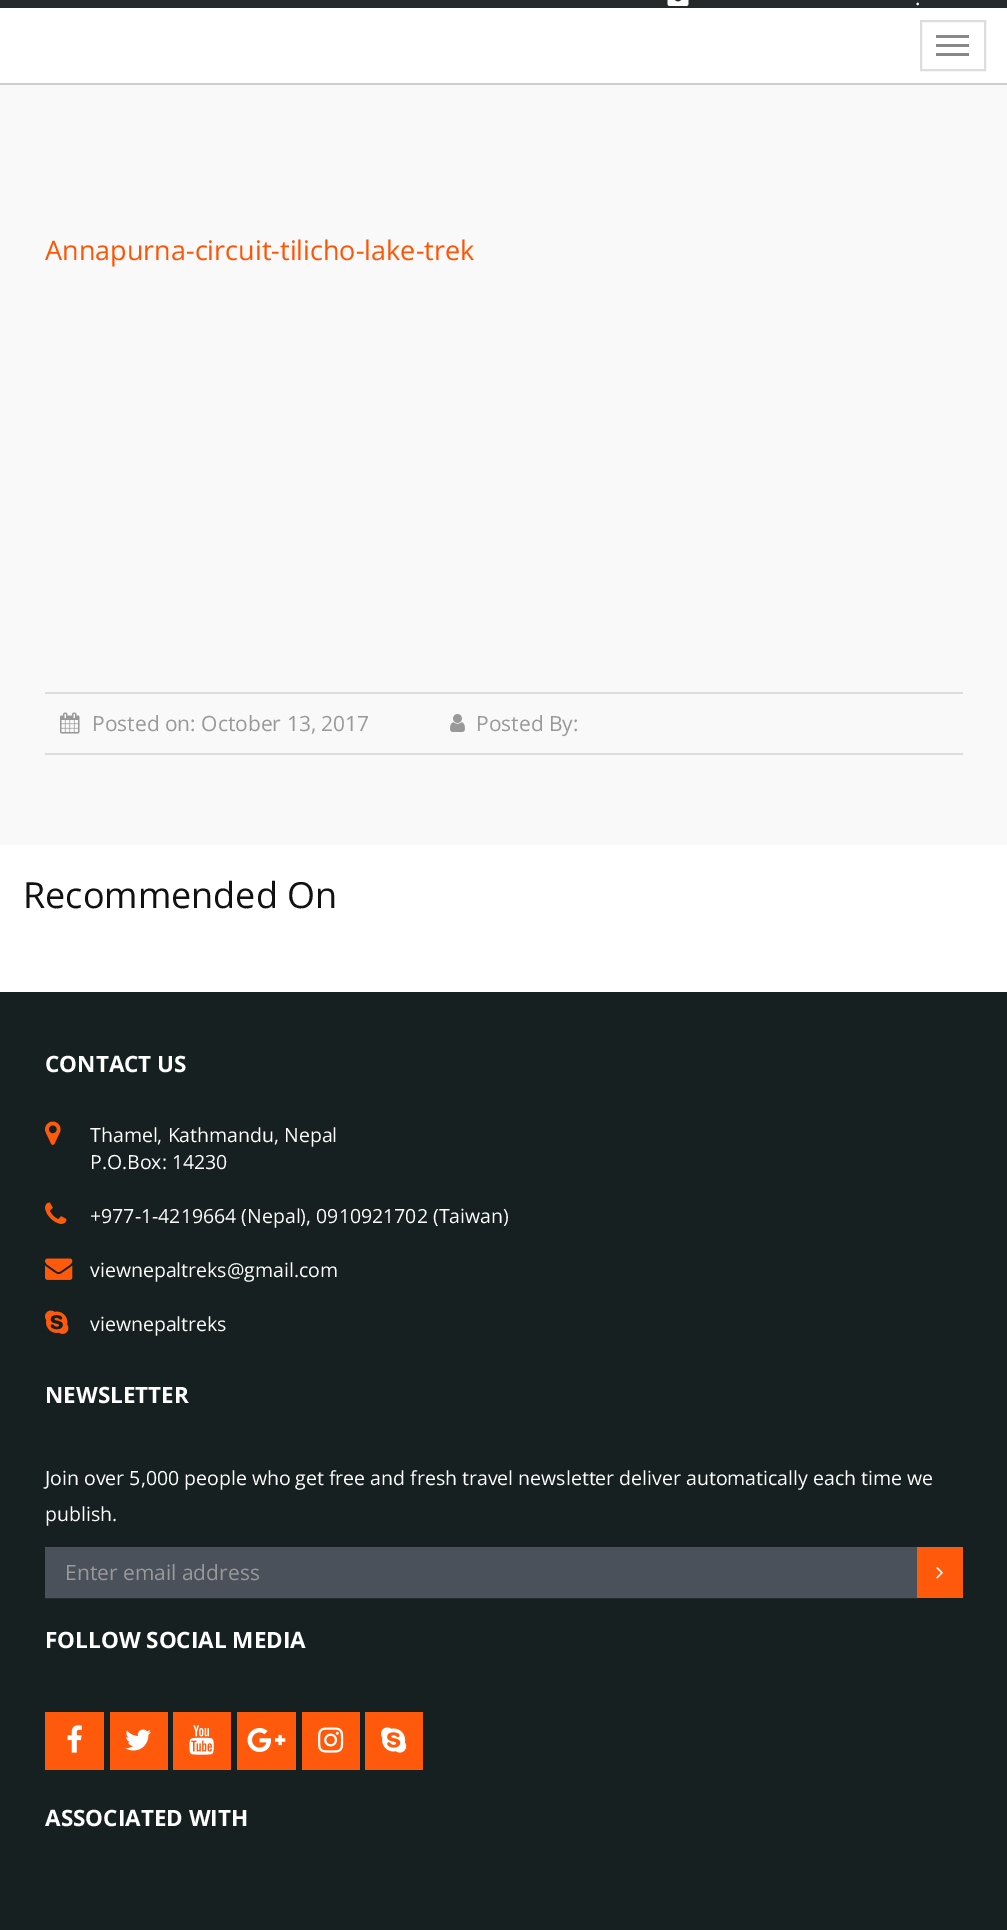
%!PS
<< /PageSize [1007 1930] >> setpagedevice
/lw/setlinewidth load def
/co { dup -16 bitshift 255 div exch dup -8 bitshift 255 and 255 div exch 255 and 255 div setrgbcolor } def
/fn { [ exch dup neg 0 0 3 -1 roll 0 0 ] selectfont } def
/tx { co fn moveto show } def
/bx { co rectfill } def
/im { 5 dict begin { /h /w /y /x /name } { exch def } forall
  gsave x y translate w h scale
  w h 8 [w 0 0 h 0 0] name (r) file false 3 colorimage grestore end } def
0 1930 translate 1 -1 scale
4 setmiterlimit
0 0 1007 1930 16#F9F9F9 bx
0 0 1007 8 16#25292C bx
(media/1.raw) 667 0 22 6 im
0 8 1007 75 16#FFFFFF bx
0 83 1007 2 16#CCCCCC bx
16#DDDDDD co
2 lw
921 21 64 49 rectstroke
936 35 33 3 16#888888 bx
936 44 33 3 16#888888 bx
936 53 33 3 16#888888 bx
45 692 918 2 16#DDDDDD bx
45 753 918 2 16#DDDDDD bx
(media/2.raw) 60 712 20 22 im
(media/3.raw) 450 714 15 18 im
0 845 1007 147 16#FFFFFF bx
0 992 1007 938 16#162021 bx
(media/4.raw) 45 1121 16 24 im
(media/5.raw) 45 1202 22 22 im
(media/6.raw) 45 1258 28 22 im
(media/7.raw) 45 1310 24 24 im
47 1550 869 46 16#4A515B bx
47 1549 870 1 16#444B54 bx
16#4A515B co
46 1548 871 49 rectstroke
917 1547 46 51 16#FF590B bx
(media/8.raw) 936 1567 7 12 im
45 1712 59 58 16#FF590B bx
(media/9.raw) 67 1725 15 28 im
110 1712 58 58 16#FF590B bx
(media/10.raw) 125 1729 26 22 im
173 1712 58 58 16#FF590B bx
(media/11.raw) 189 1725 25 30 im
237 1712 59 58 16#FF590B bx
(media/12.raw) 247 1728 39 24 im
302 1712 58 58 16#FF590B bx
(media/13.raw) 318 1727 26 26 im
365 1712 58 58 16#FF590B bx
(media/14.raw) 381 1727 26 26 im
(.) 915 5 /OpenSans-Regular 21 16#FFFFFF tx
(Annapurna-circuit-tilicho-lake-trek) 45 260 /OpenSans-Regular 27 16#FE5504 tx
(Posted on: October 13, 2017) 92 731 /OpenSans-Regular 21 16#999999 tx
(Posted By:) 476 731 /OpenSans-Regular 21 16#999999 tx
(Recommended On) 23 908 /OpenSans-Regular 36 16#111111 tx
(CONTACT US) 45 1072 /OpenSans-Bold 22.5 16#FFFFFF tx
(Thamel, Kathmandu, Nepal) 90 1142 /OpenSans-Regular 19.5 16#FFFFFF tx
(P.O.Box: 14230) 90 1169 /OpenSans-Regular 19.5 16#FFFFFF tx
(+977-1-4219664 \(Nepal\), 0910921702 \(Taiwan\)) 90 1223 /OpenSans-Regular 19.5 16#FFFFFF tx
(viewnepaltreks@gmail.com) 90 1277 /OpenSans-Regular 19.5 16#FFFFFF tx
(viewnepaltreks) 90 1331 /OpenSans-Regular 19.5 16#FFFFFF tx
(NEWSLETTER) 45 1403 /OpenSans-Bold 22.5 16#FFFFFF tx
(Join over 5,000 people who get free and fresh travel newsletter deliver automatically each time we) 45 1485 /OpenSans-Regular 19.5 16#FFFFFF tx
(publish.) 45 1521 /OpenSans-Regular 19.5 16#FFFFFF tx
(Enter email address) 65 1580 /OpenSans-Regular 21 16#999999 tx
(FOLLOW SOCIAL MEDIA) 45 1648 /OpenSans-Bold 22.5 16#FFFFFF tx
(ASSOCIATED WITH) 45 1826 /OpenSans-Bold 22.5 16#FFFFFF tx
showpage
